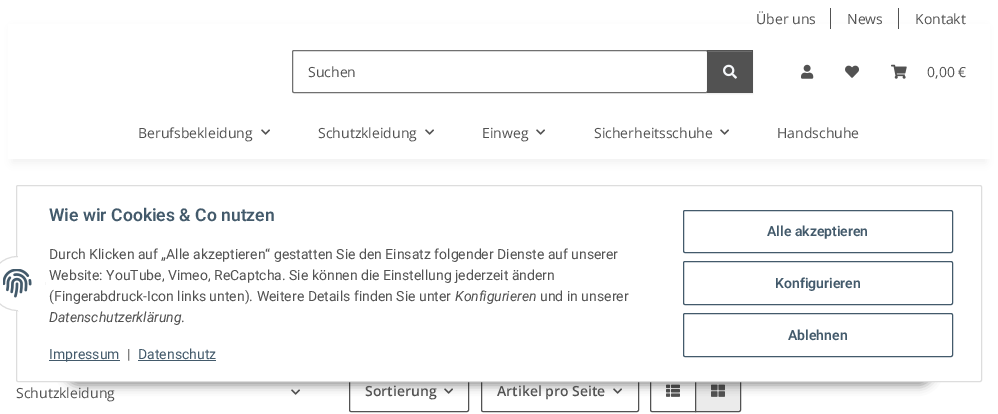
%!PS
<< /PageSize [998 414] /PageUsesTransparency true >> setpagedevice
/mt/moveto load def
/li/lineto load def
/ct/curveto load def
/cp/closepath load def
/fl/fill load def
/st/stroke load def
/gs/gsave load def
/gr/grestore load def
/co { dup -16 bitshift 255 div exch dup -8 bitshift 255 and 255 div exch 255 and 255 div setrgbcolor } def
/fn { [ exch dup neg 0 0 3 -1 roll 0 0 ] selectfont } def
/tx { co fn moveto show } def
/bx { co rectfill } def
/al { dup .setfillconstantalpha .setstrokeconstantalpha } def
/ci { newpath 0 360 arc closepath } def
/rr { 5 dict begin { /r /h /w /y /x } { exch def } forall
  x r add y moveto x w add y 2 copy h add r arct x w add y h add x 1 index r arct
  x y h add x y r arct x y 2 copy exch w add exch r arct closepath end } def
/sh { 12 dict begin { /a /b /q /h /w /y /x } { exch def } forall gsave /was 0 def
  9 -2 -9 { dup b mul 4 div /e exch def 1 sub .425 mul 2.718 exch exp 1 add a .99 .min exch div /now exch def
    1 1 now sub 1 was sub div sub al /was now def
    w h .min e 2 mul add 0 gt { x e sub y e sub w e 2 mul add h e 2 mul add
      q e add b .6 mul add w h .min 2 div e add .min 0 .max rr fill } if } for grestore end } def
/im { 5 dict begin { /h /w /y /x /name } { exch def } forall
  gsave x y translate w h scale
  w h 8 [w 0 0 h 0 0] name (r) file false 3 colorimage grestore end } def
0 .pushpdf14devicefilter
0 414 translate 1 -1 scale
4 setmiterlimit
0 0 998 414 16#FFFFFF bx
16#000000 co
12 28 974 135 0 4.5 .06 sh
8 24 982 135 16#FFFFFF bx
830 8 1 21 16#525252 bx
898 8 1 21 16#525252 bx
16#707070 co
292.5 50.5 415 42 1.5 rr st
16#000000 co
707 51 46 43 0 .5 .07 sh
707 50 46 43 16#525252 bx
708 51 44 1 16#6C6C6C bx
(media/1.raw) 723 64 14 15 im
(media/2.raw) 801 64 13 15 im
(media/3.raw) 845 65 14 13 im
(media/4.raw) 891 64 16 15 im
(media/5.raw) 261 129 9 6 im
(media/5.raw) 425 129 9 6 im
(media/5.raw) 536 129 9 6 im
(media/5.raw) 720 129 9 6 im
(media/5.raw) 291 389 9 6 im
16#525252 co
349.5 369.5 119 42 1.5 rr st
(media/5.raw) 444 388 9 6 im
481.5 369.5 157 42 1.5 rr st
(media/5.raw) 613 388 9 6 im
652 369.5 mt 695.5 369.5 li 695.5 411.5 li 652 411.5 li 651 411.5 650.5 411 650.5 410 ct 650.5 371 li 650.5 370 651 369.5 652 369.5 ct cp st
(media/7.raw) 666 384 14 13 im
16#EBEBEB co
695.5 369.5 mt 739 369.5 li 740 369.5 740.5 370 740.5 371 ct 740.5 410 li 740.5 411 740 411.5 739 411.5 ct 695.5 411.5 li cp gs fl gr
16#525252 co
st
(media/8.raw) 711 384 14 13 im
16#000000 co
65 353 868 32 16 5 .45 sh
16#FFFFFF co
16.5 185.5 965 196 1.5 rr gs fl gr
16#DDDDDD co
st
16#FFFFFF co
17.5 283.5 27 ci gs fl gr
16#DDDDDD co
st
18 256 27 55 16#FFFFFF bx
(media/6.raw) 3 269 29 29 im
49 360 71 1 16#435A6B bx
138 360 78 1 16#435A6B bx
683.5 210.5 269 42 1.5 rr st
683.5 261.5 269 43 1.5 rr st
683.5 313.5 269 43 1.5 rr st
(Über uns) 756 24 /OpenSans-Regular 14 16#525252 tx
(News) 847 24 /OpenSans-Regular 14 16#525252 tx
(Kontakt) 915 24 /OpenSans-Regular 14 16#525252 tx
(Suchen) 308 77 /OpenSans-Regular 14 16#525252 tx
(0,00 €) 927 77 /OpenSans-Regular 14 16#525252 tx
(Berufsbekleidung) 138 138 /OpenSans-Regular 14 16#525252 tx
(Schutzkleidung) 318 138 /OpenSans-Regular 14 16#525252 tx
(Einweg) 482 138 /OpenSans-Regular 14 16#525252 tx
(Sicherheitsschuhe) 594 138 /OpenSans-Regular 14 16#525252 tx
(Handschuhe) 777 138 /OpenSans-Regular 14 16#525252 tx
(Wie wir Cookies & Co nutzen) 49 221 /Roboto-SemiBold 17.6 16#435A6B tx
(Durch Klicken auf „Alle akzeptieren“ gestatten Sie den Einsatz folgender Dienste auf unserer) 49 259 /Roboto-Regular 14 16#525252 tx
(Website: YouTube, Vimeo, ReCaptcha. Sie können die Einstellung jederzeit ändern) 49 280 /Roboto-Regular 14 16#525252 tx
(\(Fingerabdruck-Icon links unten\). Weitere Details finden Sie unter) 49 301 /Roboto-Regular 14 16#525252 tx
(Konfigurieren) 455 301 /Roboto-Italic 14 16#525252 tx
(und in unserer) 540 301 /Roboto-Regular 14 16#525252 tx
(Datenschutzerklärung) 49 322 /Roboto-Italic 14 16#525252 tx
(.) 181 322 /Roboto-Regular 14 16#525252 tx
(Impressum) 49 359 /Roboto-Regular 14 16#435A6B tx
(|) 127 359 /Roboto-Regular 14 16#525252 tx
(Datenschutz) 138 359 /Roboto-Regular 14 16#435A6B tx
(Alle akzeptieren) 767 236 /Roboto-SemiBold 14 16#435A6B tx
(Konfigurieren) 775 288 /Roboto-SemiBold 14 16#435A6B tx
(Ablehnen) 788 340 /Roboto-SemiBold 14 16#435A6B tx
(Schutzkleidung) 16 398 /OpenSans-Regular 14 16#525252 tx
(Sortierung) 365 396 /OpenSans-SemiBold 14 16#525252 tx
(Artikel pro Seite) 497 396 /OpenSans-SemiBold 14 16#525252 tx
.poppdf14devicefilter showpage
